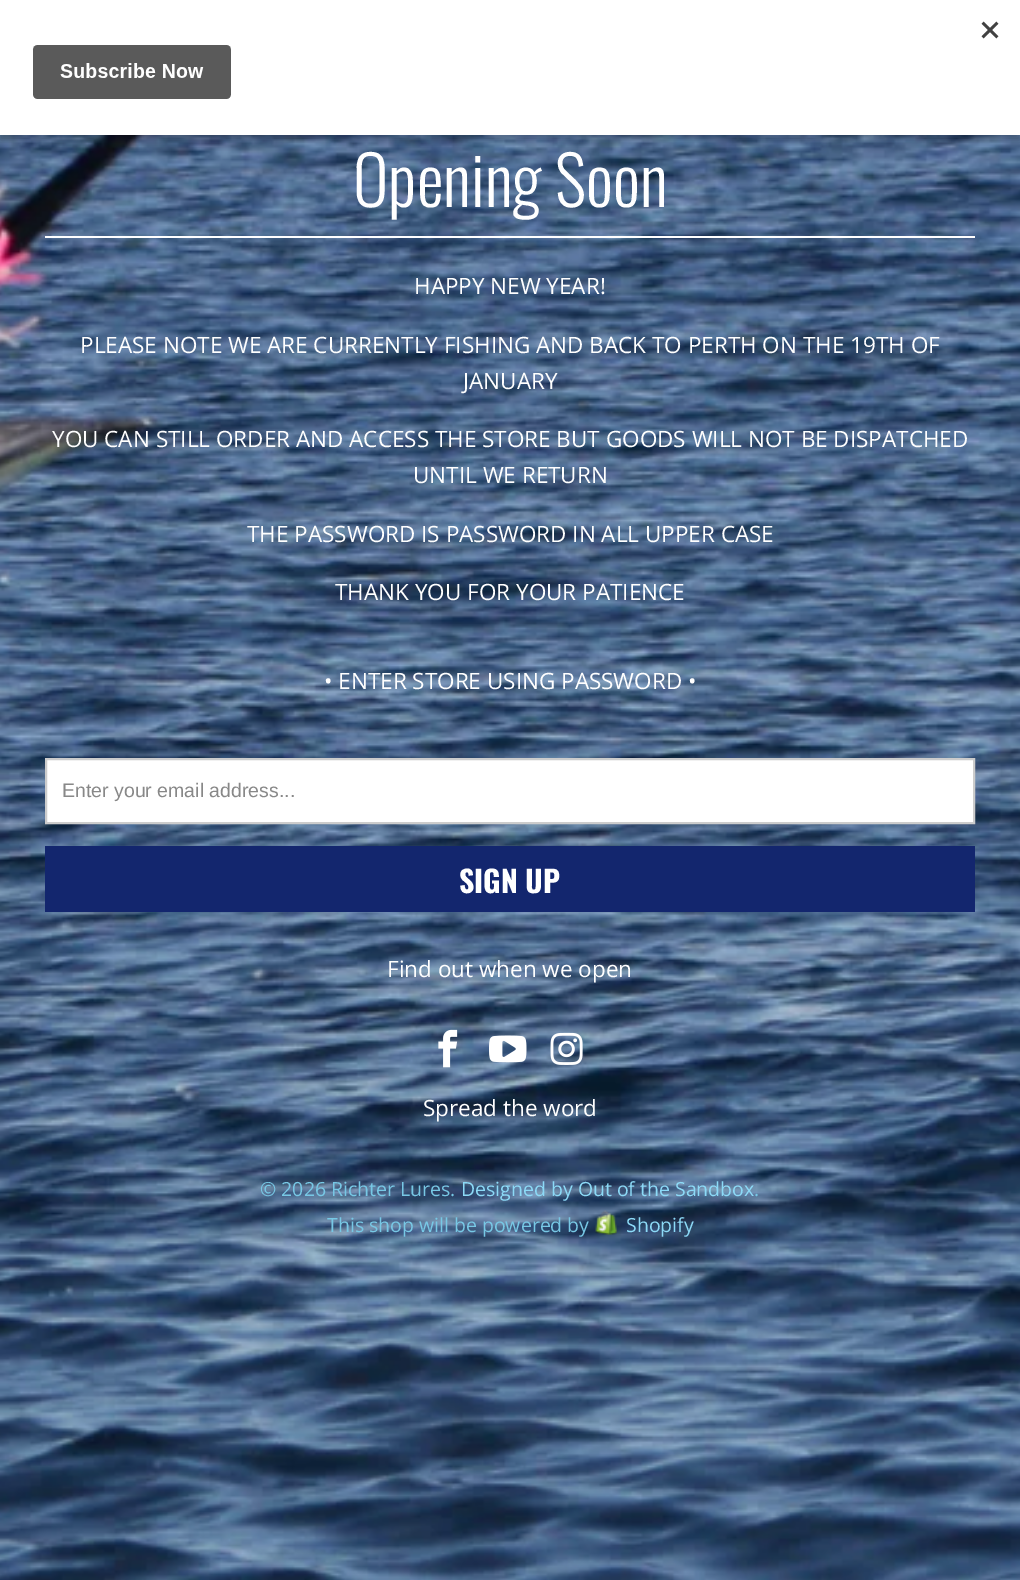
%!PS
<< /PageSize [1020 1580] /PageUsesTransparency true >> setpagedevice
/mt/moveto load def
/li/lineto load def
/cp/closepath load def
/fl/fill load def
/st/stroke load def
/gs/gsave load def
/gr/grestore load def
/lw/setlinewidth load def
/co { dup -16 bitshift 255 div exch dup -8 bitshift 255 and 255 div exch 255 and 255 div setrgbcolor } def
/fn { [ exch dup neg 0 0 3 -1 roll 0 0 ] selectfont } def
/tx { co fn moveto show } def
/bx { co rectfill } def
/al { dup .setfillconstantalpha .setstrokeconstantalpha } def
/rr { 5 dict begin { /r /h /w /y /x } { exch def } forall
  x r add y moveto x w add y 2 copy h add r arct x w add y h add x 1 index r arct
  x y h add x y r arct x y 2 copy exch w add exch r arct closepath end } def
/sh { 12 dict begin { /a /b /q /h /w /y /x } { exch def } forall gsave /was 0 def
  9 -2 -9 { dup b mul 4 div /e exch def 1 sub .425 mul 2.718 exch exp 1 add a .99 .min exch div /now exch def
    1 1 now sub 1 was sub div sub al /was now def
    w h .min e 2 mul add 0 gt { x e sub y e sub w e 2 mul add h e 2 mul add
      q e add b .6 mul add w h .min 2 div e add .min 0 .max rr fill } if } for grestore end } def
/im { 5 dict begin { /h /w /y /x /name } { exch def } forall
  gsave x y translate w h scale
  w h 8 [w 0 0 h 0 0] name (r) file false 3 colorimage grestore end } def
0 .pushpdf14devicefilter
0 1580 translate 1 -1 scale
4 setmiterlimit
0 0 1020 1580 16#FFFFFF bx
(media/1.raw) 0 135 1020 1445 im
16#000000 co
0 5 1020 135 0 4.5 .2 sh
0 0 1020 135 16#FFFFFF bx
(media/2.raw) 32 21 967 78 im
45 236 930 2 16#FFFFFF bx
46 759 mt 974 759 li 974 823 li 46 823 li cp gs fl gr
16#CCCCCC co
2 lw
st
45 846 930 66 16#13266E bx
(media/3.raw) 438 1029 20 39 im
(media/4.raw) 489 1035 38 28 im
(media/5.raw) 550 1032 33 33 im
(media/6.raw) 595 1210 22 25 im
(Opening Soon) 353 207 /Oswald-Light 67.5 16#FFFFFF tx
(HAPPY NEW YEAR!) 414 294 /OpenSans-Regular 22.5 16#FFFFFF tx
(PLEASE NOTE WE ARE CURRENTLY FISHING AND BACK TO PERTH ON THE 19TH OF) 80 353 /OpenSans-Regular 22.5 16#FFFFFF tx
(JANUARY) 463 389 /OpenSans-Regular 22.5 16#FFFFFF tx
(YOU CAN STILL ORDER AND ACCESS THE STORE BUT GOODS WILL NOT BE DISPATCHED) 52 447 /OpenSans-Regular 22.5 16#FFFFFF tx
(UNTIL WE RETURN) 413 483 /OpenSans-Regular 22.5 16#FFFFFF tx
(THE PASSWORD IS PASSWORD IN ALL UPPER CASE) 247 542 /OpenSans-Regular 22.5 16#FFFFFF tx
(THANK YOU FOR YOUR PATIENCE) 335 600 /OpenSans-Regular 22.5 16#FFFFFF tx
(• ENTER STORE USING PASSWORD •) 324 689 /OpenSans-Regular 22.5 16#FFFFFF tx
(Enter your email address...) 62 797 /LiberationSans-Regular 19.5 16#888888 tx
(SIGN UP) 459 893 /Oswald-Bold 30 16#FFFFFF tx
(Find out when we open) 387 977 /OpenSans-Regular 22.5 16#FFFFFF tx
(Spread the word) 423 1116 /OpenSans-Regular 22.5 16#FFFFFF tx
(© 2026 Richter Lures.) 260 1196 /OpenSans-Regular 19.5 16#77C8E5 tx
(Designed by Out of the Sandbox) 461 1196 /OpenSans-Regular 19.5 16#8CDAF7 tx
(.) 754 1196 /OpenSans-Regular 19.5 16#77C8E5 tx
(This shop will be powered by) 327 1232 /OpenSans-Regular 19.5 16#77C8E5 tx
(Shopify) 626 1232 /OpenSans-Regular 19.5 16#8CDAF7 tx
.poppdf14devicefilter showpage
